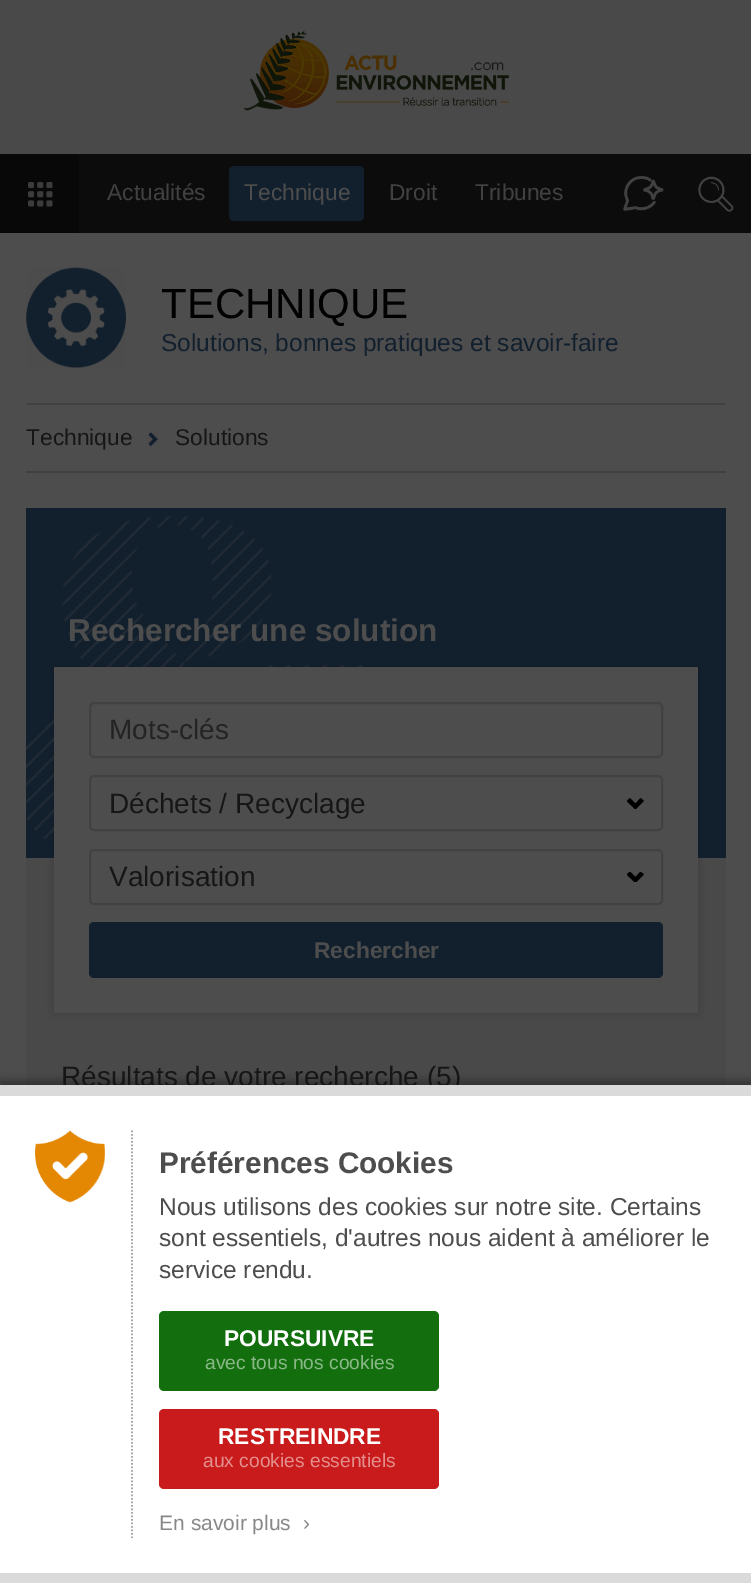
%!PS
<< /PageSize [751 1583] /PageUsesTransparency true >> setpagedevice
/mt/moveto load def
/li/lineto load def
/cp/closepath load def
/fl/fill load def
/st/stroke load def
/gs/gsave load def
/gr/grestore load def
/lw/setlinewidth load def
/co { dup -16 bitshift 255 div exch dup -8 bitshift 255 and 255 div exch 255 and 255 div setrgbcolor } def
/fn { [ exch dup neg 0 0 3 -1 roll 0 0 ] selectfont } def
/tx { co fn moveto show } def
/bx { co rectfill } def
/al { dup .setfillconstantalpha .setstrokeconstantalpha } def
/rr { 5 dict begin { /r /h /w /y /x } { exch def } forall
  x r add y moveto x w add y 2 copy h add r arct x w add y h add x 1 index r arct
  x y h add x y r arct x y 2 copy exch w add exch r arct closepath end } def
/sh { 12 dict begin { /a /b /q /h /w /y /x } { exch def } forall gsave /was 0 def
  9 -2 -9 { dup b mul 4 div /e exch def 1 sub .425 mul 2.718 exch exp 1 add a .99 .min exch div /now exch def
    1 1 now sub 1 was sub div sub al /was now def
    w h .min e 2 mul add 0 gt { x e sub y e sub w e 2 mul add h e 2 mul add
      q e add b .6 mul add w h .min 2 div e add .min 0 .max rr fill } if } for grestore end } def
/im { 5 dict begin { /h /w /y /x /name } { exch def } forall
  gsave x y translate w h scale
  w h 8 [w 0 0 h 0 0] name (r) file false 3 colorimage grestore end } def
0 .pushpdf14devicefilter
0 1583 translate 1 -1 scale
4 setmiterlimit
0 0 751 1583 16#4D4D4D bx
0 0 751 154 16#494949 bx
(media/1.raw) 243 31 266 80 im
79 154 672 79 16#0C0C0C bx
0 154 79 79 16#080808 bx
(media/2.raw) 28 182 25 25 im
16#121F2D co
229 166 135 55 5 rr fl
(media/3.raw) 623 175 41 36 im
(media/4.raw) 698 176 36 36 im
(media/5.raw) 26 267 100 101 im
26 403 700 2 16#414141 bx
(media/6.raw) 148 432 10 14 im
26 471 700 2 16#414141 bx
26 858 700 227 16#494949 bx
26 508 700 350 16#121F2D bx
(media/7.raw) 26 516 337 331 im
16#000000 co
54 667 644 346 0 4.5 .15 sh
54 667 644 346 16#4D4D4D bx
16#414141 co
2 lw
90 703 572 54 4 rr st
gs
627 798 17 11 rectclip
16#000000 co
644 801 mt 635.5 809.5 li 626.5 801 li 630 798 li 635.5 803.5 li 640.5 798 li cp fl
gr
90 776 572 54 4 rr st
gs
627 872 17 10 rectclip
16#000000 co
644 874.5 mt 635.5 883 li 626.5 874.5 li 630 871.5 li 635.5 877 li 640.5 871.5 li cp fl
gr
90 850 572 54 4 rr st
16#121F2D co
89 922 574 56 5 rr fl
16#000000 co
0 1080 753 499 0 3.5 .3 sh
0 1096 751 477 16#FFFFFF bx
0 1573 751 10 16#DADADA bx
(media/8.raw) 35 1130 70 73 im
16#A8A8A8 co
1.8 lw
[1.75 1.75] 0 setdash
132 1130.5 mt 132 1538 li st
16#136F0E co
159 1311 280 80 5 rr fl
16#C91B1B co
159 1409 280 80 5 rr fl
(Actualités) 107 200 /LiberationSans-Regular 22.75 16#414141 tx
(Technique) 244 200 /LiberationSans-Regular 22.75 16#4D4D4D tx
(Droit) 389 200 /LiberationSans-Regular 22.75 16#414141 tx
(Tribunes) 475 200 /LiberationSans-Regular 22.75 16#414141 tx
(TECHNIQUE) 161 318 /LiberationSans-Regular 42 16#000000 tx
(Solutions, bonnes pratiques et savoir-faire) 161 351 /LiberationSans-Regular 24.5 16#121F2D tx
(Technique) 26 445 /LiberationSans-Regular 22.75 16#161616 tx
(Solutions) 175 445 /LiberationSans-Regular 22.75 16#161616 tx
(Rechercher une solution) 68 641 /LiberationSans-Bold 31.5 16#4D4D4D tx
(Mots-clés) 109 739 /LiberationSans-Regular 28 16#232323 tx
(Déchets / Recyclage) 109 813 /LiberationSans-Regular 28 16#161616 tx
(Valorisation) 109 886 /LiberationSans-Regular 28 16#161616 tx
(Rechercher) 314 958 /LiberationSans-Bold 22.75 16#4D4D4D tx
(Résultats de votre recherche \(5\)) 61 1086 /LiberationSans-Regular 28 16#161616 tx
0 1085 751 11 16#DADADA bx
(Préférences Cookies) 159 1173 /LiberationSans-Bold 29.75 16#4D4D4D tx
(Nous utilisons des cookies sur notre site. Certains) 159 1215 /LiberationSans-Regular 24.5 16#4D4D4D tx
(sont essentiels, d'autres nous aident à améliorer le) 159 1246 /LiberationSans-Regular 24.5 16#4D4D4D tx
(service rendu.) 159 1278 /LiberationSans-Regular 24.5 16#4D4D4D tx
(POURSUIVRE) 224 1346 /LiberationSans-Bold 22.75 16#FFFFFF tx
(avec tous nos cookies) 205 1369 /LiberationSans-Regular 19.25 16#89B787 tx
(RESTREINDRE) 218 1444 /LiberationSans-Bold 22.75 16#FFFFFF tx
(aux cookies essentiels) 203 1467 /LiberationSans-Regular 19.25 16#E48D8D tx
(En savoir plus  ›) 159 1530 /LiberationSans-Regular 21 16#888888 tx
.poppdf14devicefilter showpage
